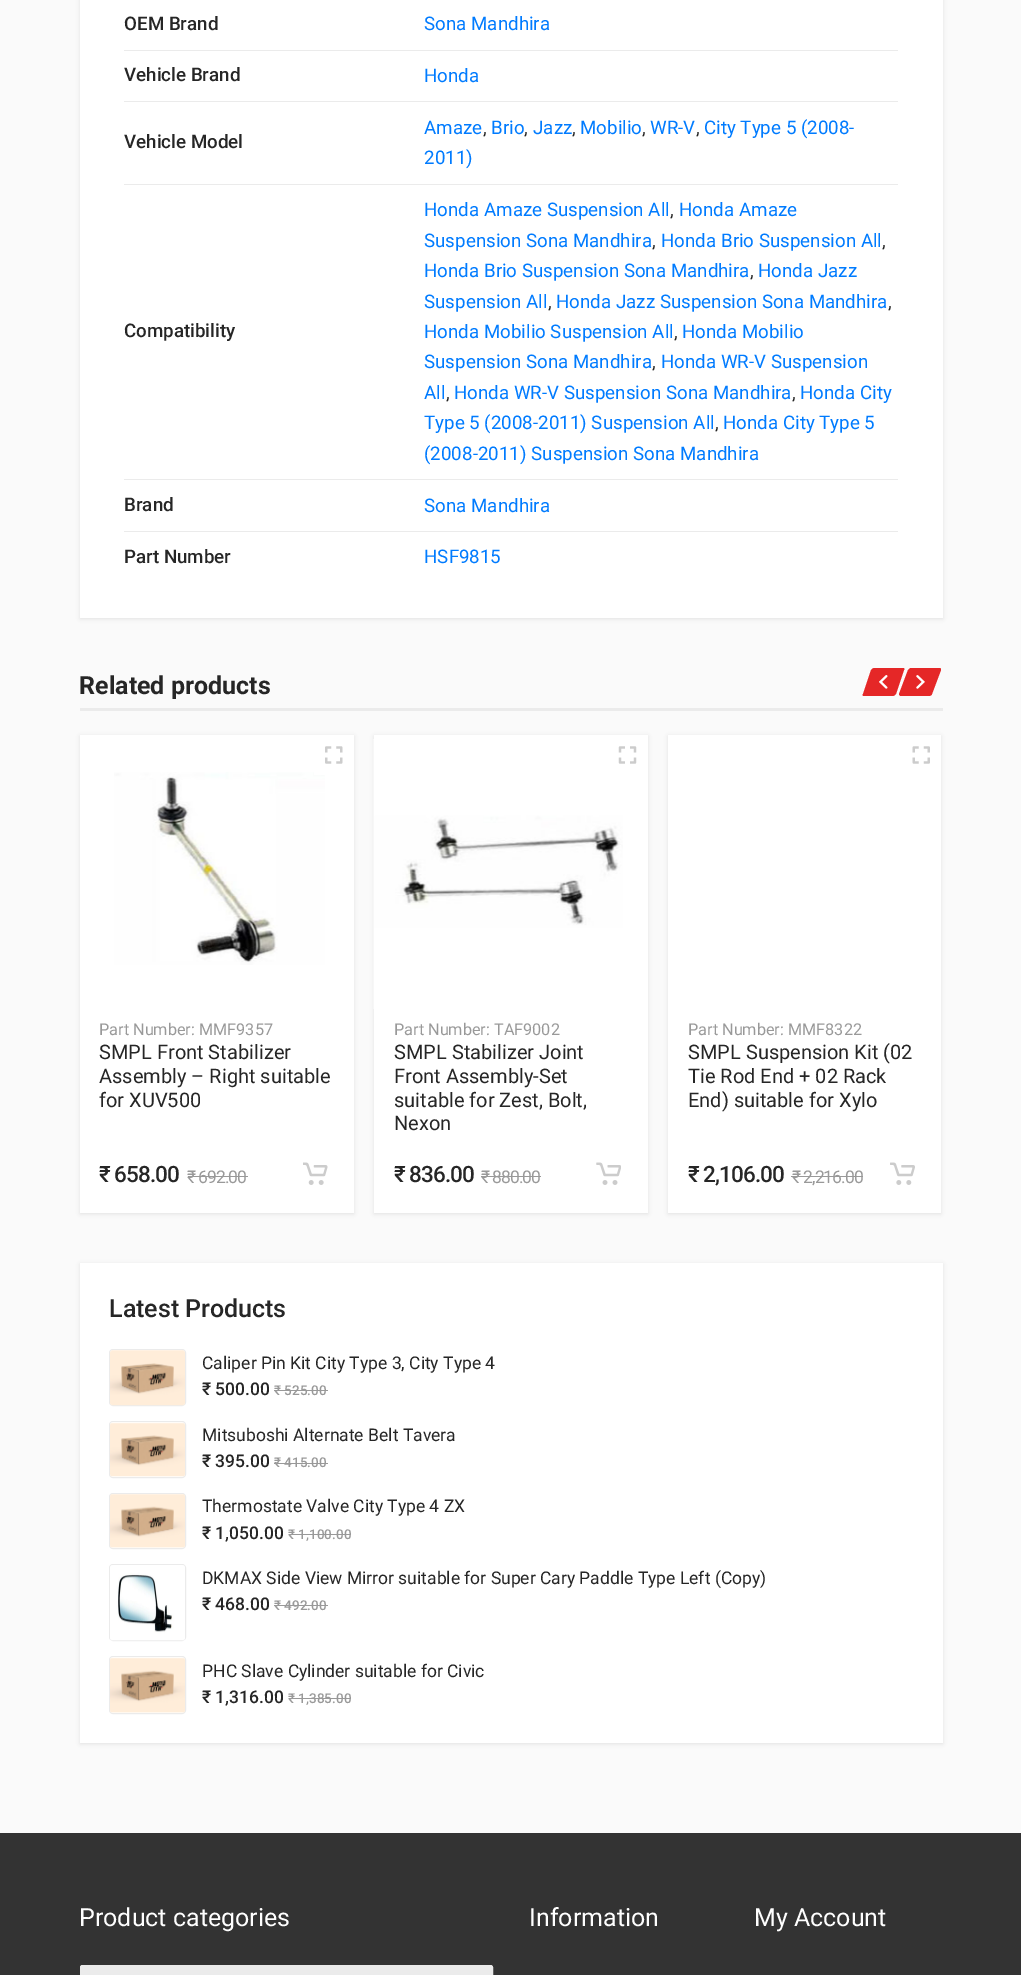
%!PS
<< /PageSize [1021 1975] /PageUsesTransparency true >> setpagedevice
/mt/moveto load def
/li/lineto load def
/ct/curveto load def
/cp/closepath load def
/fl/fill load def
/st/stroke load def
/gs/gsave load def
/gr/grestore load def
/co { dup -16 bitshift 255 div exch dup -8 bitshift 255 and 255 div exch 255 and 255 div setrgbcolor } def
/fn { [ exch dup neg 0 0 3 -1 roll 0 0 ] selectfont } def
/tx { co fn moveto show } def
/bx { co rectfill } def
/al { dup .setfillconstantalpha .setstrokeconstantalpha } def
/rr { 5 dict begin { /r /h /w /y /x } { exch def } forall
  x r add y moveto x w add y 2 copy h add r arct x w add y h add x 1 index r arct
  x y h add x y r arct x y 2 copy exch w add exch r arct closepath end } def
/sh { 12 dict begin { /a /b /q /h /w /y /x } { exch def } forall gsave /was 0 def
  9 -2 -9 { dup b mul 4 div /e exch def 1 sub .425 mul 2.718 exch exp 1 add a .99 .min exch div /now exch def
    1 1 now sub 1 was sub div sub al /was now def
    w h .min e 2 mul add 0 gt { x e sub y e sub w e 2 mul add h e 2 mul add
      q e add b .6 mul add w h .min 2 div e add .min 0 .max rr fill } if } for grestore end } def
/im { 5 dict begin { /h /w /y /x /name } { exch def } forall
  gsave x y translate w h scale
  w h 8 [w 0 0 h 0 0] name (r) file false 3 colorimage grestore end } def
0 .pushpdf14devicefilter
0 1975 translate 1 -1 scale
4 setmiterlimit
0 0 1021 1975 16#FAFAFA bx
16#000000 co
80 -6 863 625 0 2 .09 sh
80 0 863 618 16#FFFFFF bx
124 50 774 1 16#EBEBEB bx
124 101 774 1 16#EBEBEB bx
124 184 774 1 16#EBEBEB bx
124 479 774 1 16#EBEBEB bx
124 531 774 1 16#EBEBEB bx
16#E52727 co
875 668 mt 903 668 li 904 668 905 669 904 670 ct 896 694 li 895 695 894 696 892 696 ct 864 696 li 863 696 862 695 863 694 ct 871 670 li 872 669 873 668 875 668 ct cp fl
(media/1.raw) 879 675 9 14 im
911 668 mt 939 668 li 941 668 941 669 941 670 ct 932 694 li 932 695 930 696 929 696 ct 901 696 li 900 696 899 695 899 694 ct 908 670 li 909 669 910 668 911 668 ct cp fl
(media/2.raw) 916 675 9 14 im
80 708 863 3 16#EBEBEB bx
16#000000 co
80 736 274 478 0 2 .09 sh
80 735 274 478 16#FFFFFF bx
(media/4.raw) 114 772 211 193 im
314 772 11 3 16#FFFFFF bx
(media/3.raw) 325 746 18 18 im
188 1176 60 1 16#999999 bx
(media/5.raw) 303 1162 25 23 im
16#000000 co
374 736 274 478 0 2 .09 sh
374 735 274 478 16#FFFFFF bx
(media/6.raw) 373 739 250 270 im
(media/7.raw) 618 746 19 18 im
481 1176 60 1 16#999999 bx
(media/8.raw) 596 1162 25 23 im
16#000000 co
668 736 273 478 0 2 .09 sh
668 735 273 478 16#FFFFFF bx
(media/9.raw) 912 746 18 18 im
791 1176 72 1 16#999999 bx
(media/10.raw) 890 1162 25 23 im
16#000000 co
80 1264 863 480 0 2 .09 sh
80 1263 863 480 16#FFFFFF bx
16#EBEBEB co
109.5 1349.5 76 56 3.5 rr st
(media/11.raw) 110 1350 75 56 im
274 1390 54 1 16#999999 bx
16#EBEBEB co
109.5 1421.5 76 56 3.5 rr st
(media/12.raw) 110 1422 75 55 im
274 1463 54 1 16#999999 bx
16#EBEBEB co
109.5 1493.5 76 55 3.5 rr st
(media/13.raw) 110 1494 75 54 im
289 1534 62 1 16#999999 bx
16#EBEBEB co
109.5 1564.5 76 76 3.5 rr st
(media/14.raw) 110 1565 75 76 im
274 1605 54 1 16#999999 bx
16#EBEBEB co
109.5 1656.5 76 57 3.5 rr st
(media/15.raw) 110 1657 75 56 im
289 1698 62 1 16#999999 bx
0 1833 1021 142 16#333333 bx
16#EBEBEB co
80.5 1965.5 412 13 2 rr gs fl gr
st
(OEM Brand) 124 30 /Roboto-Medium 18.75 16#262626 tx
(Sona Mandhira) 424 30 /Roboto-Regular 18.75 16#007BFF tx
(Vehicle Brand) 124 81 /Roboto-Medium 18.75 16#262626 tx
(Honda) 424 82 /Roboto-Regular 18.75 16#007BFF tx
(Vehicle Model) 124 148 /Roboto-Medium 18.75 16#262626 tx
(Amaze) 424 134 /Roboto-Regular 18.75 16#007BFF tx
(Brio) 491 134 /Roboto-Regular 18.75 16#007BFF tx
(Jazz) 533 134 /Roboto-Regular 18.75 16#007BFF tx
(Mobilio) 580 134 /Roboto-Regular 18.75 16#007BFF tx
(WR-V) 650 134 /Roboto-Regular 18.75 16#007BFF tx
(City Type 5 \(2008-) 704 134 /Roboto-Regular 18.75 16#007BFF tx
(,) 483 134 /Roboto-Regular 18.75 16#262626 tx
(,) 524 134 /Roboto-Regular 18.75 16#262626 tx
(,) 572 134 /Roboto-Regular 18.75 16#262626 tx
(,) 642 134 /Roboto-Regular 18.75 16#262626 tx
(,) 696 134 /Roboto-Regular 18.75 16#262626 tx
(2011\)) 424 164 /Roboto-Regular 18.75 16#007BFF tx
(Compatibility) 124 337 /Roboto-Medium 18.75 16#262626 tx
(Honda Amaze Suspension All) 424 216 /Roboto-Regular 18.75 16#007BFF tx
(,) 670 216 /Roboto-Regular 18.75 16#262626 tx
(Honda Amaze) 679 216 /Roboto-Regular 18.75 16#007BFF tx
(Suspension Sona Mandhira) 424 247 /Roboto-Regular 18.75 16#007BFF tx
(,) 652 247 /Roboto-Regular 18.75 16#262626 tx
(Honda Brio Suspension All) 661 247 /Roboto-Regular 18.75 16#007BFF tx
(,) 882 247 /Roboto-Regular 18.75 16#262626 tx
(Honda Brio Suspension Sona Mandhira) 424 277 /Roboto-Regular 18.75 16#007BFF tx
(,) 750 277 /Roboto-Regular 18.75 16#262626 tx
(Honda Jazz) 758 277 /Roboto-Regular 18.75 16#007BFF tx
(Suspension All) 424 308 /Roboto-Regular 18.75 16#007BFF tx
(,) 548 308 /Roboto-Regular 18.75 16#262626 tx
(Honda Jazz Suspension Sona Mandhira) 556 308 /Roboto-Regular 18.75 16#007BFF tx
(,) 888 308 /Roboto-Regular 18.75 16#262626 tx
(Honda Mobilio Suspension All) 424 338 /Roboto-Regular 18.75 16#007BFF tx
(,) 674 338 /Roboto-Regular 18.75 16#262626 tx
(Honda Mobilio) 682 338 /Roboto-Regular 18.75 16#007BFF tx
(Suspension Sona Mandhira) 424 368 /Roboto-Regular 18.75 16#007BFF tx
(,) 652 368 /Roboto-Regular 18.75 16#262626 tx
(Honda WR-V Suspension) 661 368 /Roboto-Regular 18.75 16#007BFF tx
(All) 424 399 /Roboto-Regular 18.75 16#007BFF tx
(,) 446 399 /Roboto-Regular 18.75 16#262626 tx
(Honda WR-V Suspension Sona Mandhira) 454 399 /Roboto-Regular 18.75 16#007BFF tx
(,) 792 399 /Roboto-Regular 18.75 16#262626 tx
(Honda City) 800 399 /Roboto-Regular 18.75 16#007BFF tx
(Type 5 \(2008-2011\) Suspension All) 424 429 /Roboto-Regular 18.75 16#007BFF tx
(,) 715 429 /Roboto-Regular 18.75 16#262626 tx
(Honda City Type 5) 723 429 /Roboto-Regular 18.75 16#007BFF tx
(\(2008-2011\) Suspension Sona Mandhira) 424 460 /Roboto-Regular 18.75 16#007BFF tx
(Brand) 124 511 /Roboto-Medium 18.75 16#262626 tx
(Sona Mandhira) 424 512 /Roboto-Regular 18.75 16#007BFF tx
(Part Number) 124 563 /Roboto-Medium 18.75 16#262626 tx
(HSF9815) 424 563 /Roboto-Regular 18.75 16#007BFF tx
(Related products) 79 694 /Roboto-Bold 25 16#262626 tx
(Part Number: MMF9357) 99 1035 /Roboto-Regular 16.25 16#999999 tx
(SMPL Front Stabilizer) 99 1059 /Roboto-Regular 20 16#262626 tx
(Assembly – Right suitable) 99 1083 /Roboto-Regular 20 16#262626 tx
(for XUV500) 99 1107 /Roboto-Regular 20 16#262626 tx
/Roboto-Medium 22.5 fn
99 1182 mt -1 0 (₹ 658.00) ashow
/Roboto-Regular 17.5 fn
16#999999 co
187 1183 mt -1 0 (₹ 692.00) ashow
(Part Number: TAF9002) 394 1035 /Roboto-Regular 16.25 16#999999 tx
(SMPL Stabilizer Joint) 394 1059 /Roboto-Regular 20 16#262626 tx
(Front Assembly-Set) 394 1083 /Roboto-Regular 20 16#262626 tx
(suitable for Zest, Bolt,) 394 1107 /Roboto-Regular 20 16#262626 tx
(Nexon) 394 1130 /Roboto-Regular 20 16#262626 tx
/Roboto-Medium 22.5 fn
394 1182 mt -1 0 (₹ 836.00) ashow
/Roboto-Regular 17.5 fn
16#999999 co
481 1183 mt -1 0 (₹ 880.00) ashow
(Part Number: MMF8322) 688 1035 /Roboto-Regular 16.25 16#999999 tx
(SMPL Suspension Kit \(02) 688 1059 /Roboto-Regular 20 16#262626 tx
(Tie Rod End + 02 Rack) 688 1083 /Roboto-Regular 20 16#262626 tx
(End\) suitable for Xylo) 688 1107 /Roboto-Regular 20 16#262626 tx
/Roboto-Medium 22.5 fn
688 1182 mt -1 0 (₹ 2,106.00) ashow
/Roboto-Regular 17.5 fn
16#999999 co
792 1183 mt -1 0 (₹ 2,216.00) ashow
(Latest Products) 109 1317 /Roboto-Medium 25 16#262626 tx
(Caliper Pin Kit City Type 3, City Type 4) 202 1369 /Roboto-Regular 17.5 16#262626 tx
(₹ 500.00) 202 1395 /Roboto-Medium 17.5 16#262626 tx
(₹ 525.00) 274 1395 /Roboto-Medium 13.5 16#999999 tx
(Mitsuboshi Alternate Belt Tavera) 202 1441 /Roboto-Regular 17.5 16#262626 tx
(₹ 395.00) 202 1467 /Roboto-Medium 17.5 16#262626 tx
(₹ 415.00) 274 1467 /Roboto-Medium 13.5 16#999999 tx
(Thermostate Valve City Type 4 ZX) 202 1512 /Roboto-Regular 17.5 16#262626 tx
(₹ 1,050.00) 202 1539 /Roboto-Medium 17.5 16#262626 tx
(₹ 1,100.00) 288 1539 /Roboto-Medium 13.5 16#999999 tx
(DKMAX Side View Mirror suitable for Super Cary Paddle Type Left \(Copy\)) 202 1584 /Roboto-Regular 17.5 16#262626 tx
(₹ 468.00) 202 1610 /Roboto-Medium 17.5 16#262626 tx
(₹ 492.00) 274 1610 /Roboto-Medium 13.5 16#999999 tx
(PHC Slave Cylinder suitable for Civic) 202 1677 /Roboto-Regular 17.5 16#262626 tx
(₹ 1,316.00) 202 1703 /Roboto-Medium 17.5 16#262626 tx
(₹ 1,385.00) 288 1703 /Roboto-Medium 13.5 16#999999 tx
(Product categories) 79 1926 /Roboto-Regular 25 16#FFFFFF tx
(Information) 529 1926 /Roboto-Regular 25 16#FFFFFF tx
(My Account) 754 1926 /Roboto-Regular 25 16#FFFFFF tx
.poppdf14devicefilter showpage
